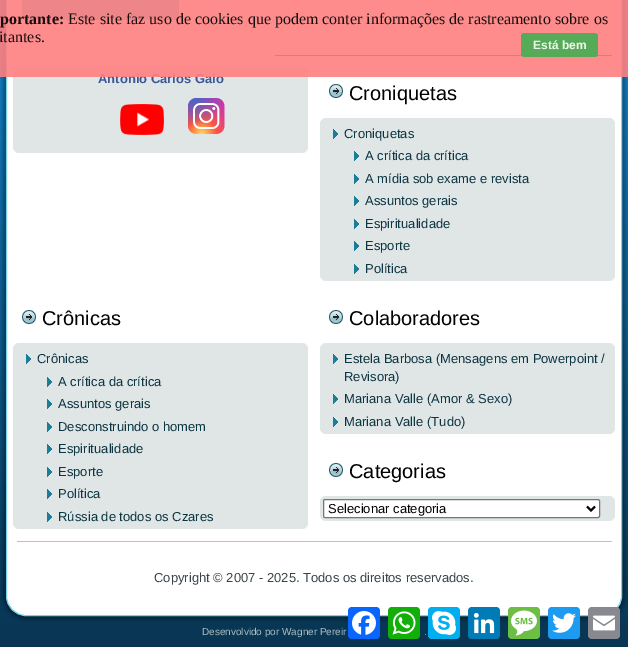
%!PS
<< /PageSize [628 647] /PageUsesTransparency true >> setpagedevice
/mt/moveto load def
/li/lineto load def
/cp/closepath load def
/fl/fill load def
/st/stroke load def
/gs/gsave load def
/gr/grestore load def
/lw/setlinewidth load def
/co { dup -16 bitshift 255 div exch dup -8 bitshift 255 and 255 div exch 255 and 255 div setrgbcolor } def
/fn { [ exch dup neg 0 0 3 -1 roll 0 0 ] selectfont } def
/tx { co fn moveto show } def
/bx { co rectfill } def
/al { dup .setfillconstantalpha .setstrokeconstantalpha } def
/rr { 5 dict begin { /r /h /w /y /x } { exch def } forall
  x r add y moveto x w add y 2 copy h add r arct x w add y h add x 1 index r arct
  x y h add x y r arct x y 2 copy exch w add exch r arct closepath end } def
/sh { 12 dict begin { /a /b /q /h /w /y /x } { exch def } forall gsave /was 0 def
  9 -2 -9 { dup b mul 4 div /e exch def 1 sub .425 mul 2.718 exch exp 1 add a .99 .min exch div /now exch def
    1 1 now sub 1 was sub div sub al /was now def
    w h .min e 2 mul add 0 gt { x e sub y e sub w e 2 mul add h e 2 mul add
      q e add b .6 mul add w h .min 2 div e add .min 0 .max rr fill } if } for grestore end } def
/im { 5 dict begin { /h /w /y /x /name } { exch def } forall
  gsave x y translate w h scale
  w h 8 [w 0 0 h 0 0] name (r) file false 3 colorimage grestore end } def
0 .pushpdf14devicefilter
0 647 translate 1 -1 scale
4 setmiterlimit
0 0 628 647 16#FFFFFF bx
gs 0 0 mt 628 0 li 628 647 li 0 647 li cp clip newpath
<< /ShadingType 2 /ColorSpace /DeviceRGB /Coords [314 0 314 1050] /Extend [true true] /Function << /FunctionType 2 /Domain [0 1] /C0 [.082 .537 .835] /C1 [0 0 0] /N 1 >> >> shfill gr
16#000000 co
3 -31 622 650 23 2.5 .4 sh
16#FFFFFF co
6.5 -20.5 615 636 19.5 rr gs fl gr
16#7DD1E8 co
st
16#0866FF co
348 607 32 32 4 rr fl
(media/1.raw) 352 611 24 24 im
16#12AF0A co
388 607 32 32 4 rr fl
(media/2.raw) 392 611 24 24 im
16#00AFF0 co
428 607 32 32 4 rr fl
(media/3.raw) 432 611 24 24 im
16#007BB5 co
468 607 32 32 4 rr fl
(media/4.raw) 473 612 22 22 im
16#6CBE45 co
508 607 32 32 4 rr fl
(media/5.raw) 511 610 26 26 im
16#1D9BF0 co
548 607 32 32 4 rr fl
(media/6.raw) 552 613 24 20 im
16#888990 co
588 607 32 32 4 rr fl
(media/7.raw) 593 615 22 16 im
16#52C1E0 co
22 -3 157 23 3 rr fl
275 55 337 1 16#0000EE bx
16#E0E5E6 co
13 68 295 85 6 rr fl
(media/8.raw) 120 104 44 31 im
(media/9.raw) 188 98 37 36 im
(media/10.raw) 329 84 14 14 im
320 118 295 163 6 rr fl
(media/11.raw) 333 129 5 10 im
(media/11.raw) 354 151 5 10 im
(media/11.raw) 354 174 5 10 im
(media/11.raw) 354 196 5 10 im
(media/11.raw) 354 219 5 10 im
(media/11.raw) 354 241 5 10 im
(media/11.raw) 354 264 5 10 im
(media/10.raw) 22 310 14 14 im
13 343 295 186 6 rr fl
(media/11.raw) 26 354 5 10 im
(media/11.raw) 47 377 5 10 im
(media/11.raw) 47 399 5 10 im
(media/11.raw) 47 422 5 10 im
(media/11.raw) 47 444 5 10 im
(media/11.raw) 47 467 5 10 im
(media/11.raw) 47 489 5 10 im
(media/11.raw) 47 512 5 10 im
(media/10.raw) 329 310 14 14 im
320 343 295 91 6 rr fl
(media/11.raw) 333 354 5 10 im
(media/11.raw) 333 394 5 10 im
(media/11.raw) 333 417 5 10 im
(media/10.raw) 329 463 14 14 im
320 496 295 25 6 rr fl
16#FFFFFF co
323.5 499.5 276 18 1.5 rr gs fl gr
16#767676 co
st
16#000000 co
2 lw
587 506.5 mt 591 510.5 li 595 506.5 li st
17 541 595 1 16#B8C4C7 bx
(Antonio Carlos Gaio) 98 83 /LiberationSans-Bold 13 16#3B5998 tx
0.9 al
0 0 628 77 16#FF8080 bx
1 al
(itantes.) -1 42 /LiberationSerif-Regular 16 16#190E0E tx
(Este site faz uso de cookies que podem conter informações de rastreamento sobre os) 68 24 /LiberationSerif-Regular 16 16#190E0E tx
(portante:) 0 24 /LiberationSerif-Bold 16 16#190E0E tx
0.9 al
16#45AE52 co
521 33 77 24 3 rr fl
1 al
(Está bem) 533 49 /LiberationSans-Bold 12 16#EEF7EE tx
(Croniquetas) 349 100 /LiberationSans-Regular 20 16#000000 tx
(Croniquetas) 344 138 /LiberationSans-Regular 13 16#0B3541 tx
(A crítica da crítica) 365 160 /LiberationSans-Regular 13 16#0B3541 tx
(A mídia sob exame e revista) 365 183 /LiberationSans-Regular 13 16#0B3541 tx
(Assuntos gerais) 365 205 /LiberationSans-Regular 13 16#0B3541 tx
(Espiritualidade) 365 228 /LiberationSans-Regular 13 16#0B3541 tx
(Esporte) 365 250 /LiberationSans-Regular 13 16#0B3541 tx
(Política) 365 273 /LiberationSans-Regular 13 16#0B3541 tx
(Crônicas) 42 325 /LiberationSans-Regular 20 16#000000 tx
(Crônicas) 37 363 /LiberationSans-Regular 13 16#0B3541 tx
(A crítica da crítica) 58 386 /LiberationSans-Regular 13 16#0B3541 tx
(Assuntos gerais) 58 408 /LiberationSans-Regular 13 16#0B3541 tx
(Desconstruindo o homem) 58 431 /LiberationSans-Regular 13 16#0B3541 tx
(Espiritualidade) 58 453 /LiberationSans-Regular 13 16#0B3541 tx
(Esporte) 58 476 /LiberationSans-Regular 13 16#0B3541 tx
(Política) 58 498 /LiberationSans-Regular 13 16#0B3541 tx
(Rússia de todos os Czares) 58 521 /LiberationSans-Regular 13 16#0B3541 tx
(Colaboradores) 349 325 /LiberationSans-Regular 20 16#000000 tx
(Estela Barbosa \(Mensagens em Powerpoint /) 344 363 /LiberationSans-Regular 13 16#0B3541 tx
(Revisora\)) 344 381 /LiberationSans-Regular 13 16#0B3541 tx
(Mariana Valle \(Amor & Sexo\)) 344 403 /LiberationSans-Regular 13 16#0B3541 tx
(Mariana Valle \(Tudo\)) 344 426 /LiberationSans-Regular 13 16#0B3541 tx
(Categorias) 349 478 /LiberationSans-Regular 20 16#000000 tx
(Selecionar categoria) 328 513 /LiberationSans-Regular 13 16#000000 tx
(Copyright © 2007 - 2025. Todos os direitos reservados.) 154 582 /LiberationSans-Regular 13 16#384447 tx
(Desenvolvido por Wagner Pereir) 202 635 /LiberationSans-Regular 10 16#AFBDC0 tx
(.) 424 635 /LiberationSans-Regular 10 16#AFBDC0 tx
.poppdf14devicefilter showpage
